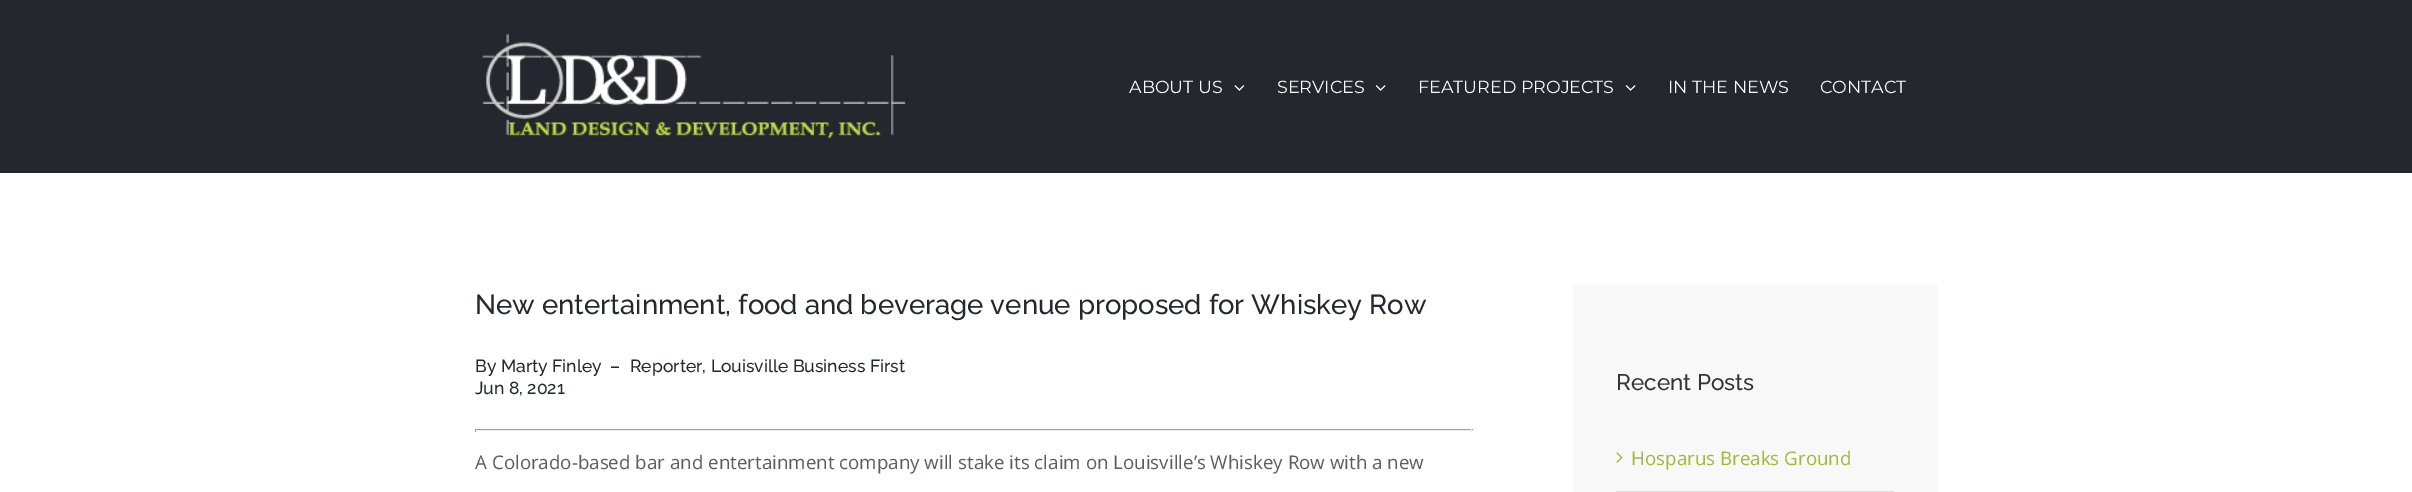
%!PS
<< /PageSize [2412 492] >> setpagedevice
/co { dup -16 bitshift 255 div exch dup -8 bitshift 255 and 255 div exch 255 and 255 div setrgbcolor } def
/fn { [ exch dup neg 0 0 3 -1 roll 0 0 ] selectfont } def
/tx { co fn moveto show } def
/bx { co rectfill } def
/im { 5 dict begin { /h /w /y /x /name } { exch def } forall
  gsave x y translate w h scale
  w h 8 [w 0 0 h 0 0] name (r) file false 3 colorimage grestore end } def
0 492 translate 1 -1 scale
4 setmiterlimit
0 0 2412 492 16#FFFFFF bx
0 0 2412 173 16#24272D bx
(media/1.raw) 482 33 424 106 im
(media/2.raw) 1234 85 11 6 im
(media/3.raw) 1375 85 11 6 im
(media/3.raw) 1625 85 11 6 im
475 429 998 1 16#9F9F9F bx
1471 429 1 3 16#EEEEEE bx
475 430 998 1 16#EEEEEE bx
475 429 1 3 16#9F9F9F bx
1573 285 365 207 16#F8F8F8 bx
1616 491 278 1 16#E0DEDE bx
(media/4.raw) 1616 452 7 11 im
(ABOUT US) 1129 93 /Montserrat-Thin 17.5 16#FFFFFF tx
(SERVICES) 1277 93 /Montserrat-Thin 17.5 16#FFFFFF tx
(FEATURED PROJECTS) 1418 93 /Montserrat-Thin 17.5 16#FFFFFF tx
(IN THE NEWS) 1668 93 /Montserrat-Thin 17.5 16#FFFFFF tx
(CONTACT) 1820 93 /Montserrat-Thin 17.5 16#FFFFFF tx
(New entertainment, food and beverage venue proposed for Whiskey Row) 475 314 /Raleway-Thin 27.5 16#242930 tx
(By Marty Finley) 475 372 /Raleway-Thin 17.5 16#242930 tx
(–) 610 372 /Raleway-Thin 17.5 16#242930 tx
(Reporter, Louisville Business First) 630 372 /Raleway-Thin 17.5 16#242930 tx
(Jun 8, 2021) 475 394 /Raleway-Thin 17.5 16#242930 tx
(A Colorado-based bar and entertainment company will stake its claim on Louisville’s Whiskey Row with a new) 475 469 /OpenSans-Regular 18.75 16#5A5D62 tx
(Recent Posts) 1616 390 /Raleway-Thin 22.5 16#333333 tx
(Hosparus Breaks Ground) 1631 465 /OpenSans-Regular 18.75 16#9FBA3B tx
showpage
